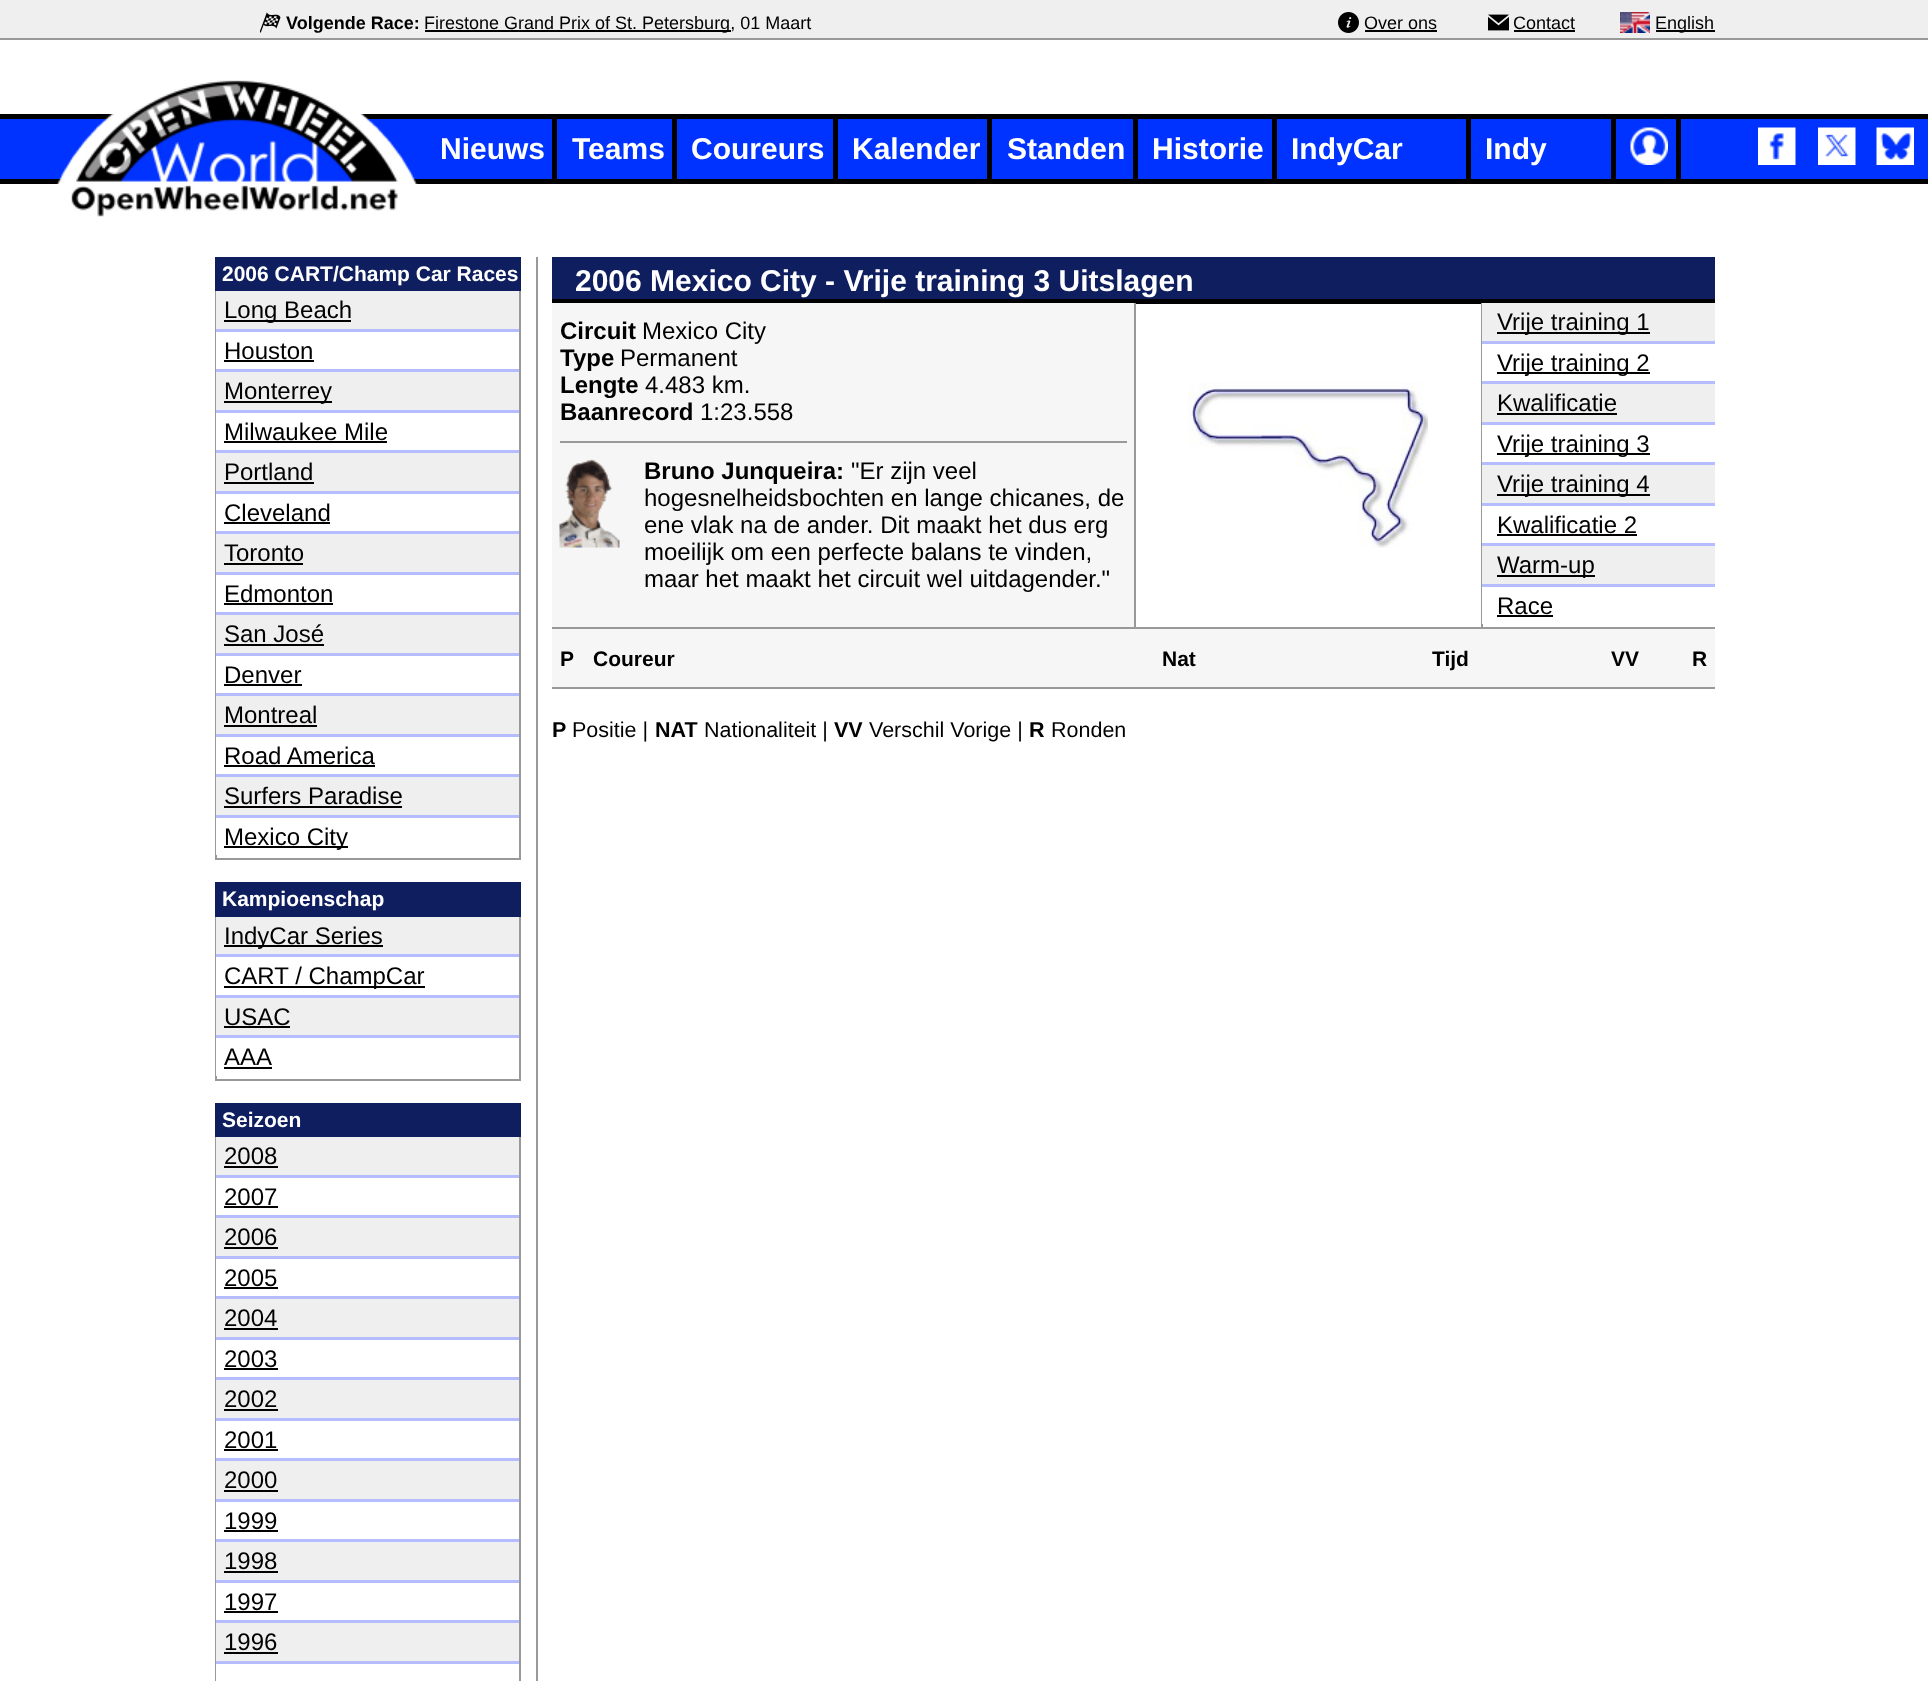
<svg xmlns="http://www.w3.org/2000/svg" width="1928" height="1681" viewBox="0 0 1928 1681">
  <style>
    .t1 { font: bold 18px Liberation Sans; fill: #000; }
    .t2 { font: 18px Liberation Sans; fill: #000; }
    .t3 { font: bold 30px Liberation Sans; fill: #fff; }
    .t4 { font: bold 21px Liberation Sans; fill: #fff; }
    .t5 { font: 24px Liberation Sans; fill: #000; }
    .t6 { font: bold 24px Liberation Sans; fill: #000; }
    .t7 { font: bold 21px Liberation Sans; fill: #000; }
    .t8 { font: bold 21.5px Liberation Sans; fill: #000; }
    .t9 { font: 21.5px Liberation Sans; fill: #000; }
  </style>
  <rect width="100%" height="100%" fill="#fff"/>
  <rect x="0" y="0" width="1928" height="38" fill="#efefef"/>
  <rect x="0" y="38" width="1928" height="2" fill="#999"/>
  <image x="260" y="12" width="21" height="21" href="images/1.png"/>
  <text x="286" y="29" class="t1">Volgende Race:</text>
  <rect x="425" y="30" width="306" height="2" fill="#000"/>
  <text x="424" y="29" class="t2">Firestone Grand Prix of St. Petersburg, 01 Maart</text>
  <image x="1338" y="12" width="21" height="21" href="images/2.png"/>
  <text x="1364" y="29" class="t2">Over ons</text>
  <rect x="1365" y="30" width="72" height="2" fill="#000"/>
  <image x="1488" y="14" width="21" height="17" href="images/3.png"/>
  <text x="1513" y="29" class="t2">Contact</text>
  <rect x="1514" y="30" width="61" height="2" fill="#000"/>
  <image x="1620" y="12" width="30" height="21" href="images/4.png"/>
  <rect x="1656" y="30" width="59" height="2" fill="#000"/>
  <text x="1655" y="29" class="t2">English</text>
  <rect x="0" y="119" width="1928" height="60" fill="#03f"/>
  <rect x="0" y="114" width="1928" height="5" fill="#000"/>
  <rect x="0" y="179" width="1928" height="5" fill="#000"/>
  <image x="56" y="80" width="362" height="137" href="images/5.png"/>
  <rect x="552" y="119" width="5" height="60" fill="#000"/>
  <text x="440" y="159" class="t3">Nieuws</text>
  <rect x="672" y="119" width="5" height="60" fill="#000"/>
  <text x="572" y="159" class="t3">Teams</text>
  <rect x="833" y="119" width="5" height="60" fill="#000"/>
  <text x="691" y="159" class="t3">Coureurs</text>
  <rect x="987" y="119" width="5" height="60" fill="#000"/>
  <text x="852" y="159" class="t3">Kalender</text>
  <rect x="1133" y="119" width="5" height="60" fill="#000"/>
  <text x="1007" y="159" class="t3">Standen</text>
  <rect x="1272" y="119" width="5" height="60" fill="#000"/>
  <text x="1152" y="159" class="t3">Historie</text>
  <rect x="1466" y="119" width="5" height="60" fill="#000"/>
  <text x="1291" y="159" class="t3">IndyCar</text>
  <rect x="1611" y="119" width="5" height="60" fill="#000"/>
  <text x="1485" y="159" class="t3">Indy</text>
  <rect x="1676" y="119" width="5" height="60" fill="#000"/>
  <image x="1630" y="127" width="38" height="38" href="images/6.png"/>
  <image x="1758" y="127" width="38" height="38" href="images/7.png"/>
  <image x="1818" y="127" width="38" height="38" href="images/8.png"/>
  <image x="1876" y="127" width="38" height="38" href="images/9.png"/>
  <rect x="536" y="257" width="2" height="1424" fill="#999"/>
  <rect x="215" y="257" width="306" height="34" fill="#0e1e5f"/>
  <text x="222" y="281" class="t4">2006 CART/Champ Car Races</text>
  <rect x="519" y="291" width="2" height="569" fill="#999"/>
  <rect x="215" y="858" width="306" height="2" fill="#999"/>
  <rect x="215" y="291" width="2" height="569" fill="#999"/>
  <rect x="216" y="329" width="303" height="489" fill="#b5bcff"/>
  <rect x="216" y="291" width="303" height="38" fill="#efefef"/>
  <rect x="224" y="320" width="127" height="2" fill="#000"/>
  <text x="224" y="318" class="t5">Long Beach</text>
  <rect x="216" y="332" width="303" height="37" fill="#fff"/>
  <text x="224" y="359" class="t5">Houston</text>
  <rect x="224" y="360" width="90" height="2" fill="#000"/>
  <rect x="216" y="372" width="303" height="38" fill="#efefef"/>
  <rect x="224" y="401" width="108" height="2" fill="#000"/>
  <text x="224" y="399" class="t5">Monterrey</text>
  <rect x="216" y="413" width="303" height="37" fill="#fff"/>
  <text x="224" y="440" class="t5">Milwaukee Mile</text>
  <rect x="224" y="441" width="163" height="2" fill="#000"/>
  <rect x="216" y="453" width="303" height="38" fill="#efefef"/>
  <text x="224" y="480" class="t5">Portland</text>
  <rect x="224" y="482" width="90" height="2" fill="#000"/>
  <rect x="216" y="494" width="303" height="37" fill="#fff"/>
  <text x="224" y="521" class="t5">Cleveland</text>
  <rect x="224" y="522" width="106" height="2" fill="#000"/>
  <rect x="216" y="534" width="303" height="38" fill="#efefef"/>
  <text x="224" y="561" class="t5">Toronto</text>
  <rect x="224" y="563" width="79" height="2" fill="#000"/>
  <rect x="216" y="575" width="303" height="37" fill="#fff"/>
  <text x="224" y="602" class="t5">Edmonton</text>
  <rect x="224" y="603" width="109" height="2" fill="#000"/>
  <rect x="216" y="615" width="303" height="38" fill="#efefef"/>
  <text x="224" y="642" class="t5">San José</text>
  <rect x="224" y="644" width="100" height="2" fill="#000"/>
  <rect x="216" y="656" width="303" height="37" fill="#fff"/>
  <text x="224" y="683" class="t5">Denver</text>
  <rect x="224" y="684" width="78" height="2" fill="#000"/>
  <rect x="216" y="696" width="303" height="38" fill="#efefef"/>
  <text x="224" y="723" class="t5">Montreal</text>
  <rect x="224" y="725" width="93" height="2" fill="#000"/>
  <rect x="216" y="737" width="303" height="37" fill="#fff"/>
  <text x="224" y="764" class="t5">Road America</text>
  <rect x="224" y="765" width="151" height="2" fill="#000"/>
  <rect x="216" y="777" width="303" height="38" fill="#efefef"/>
  <text x="224" y="804" class="t5">Surfers Paradise</text>
  <rect x="224" y="806" width="178" height="2" fill="#000"/>
  <rect x="216" y="818" width="1" height="37" fill="#fff"/>
  <rect x="224" y="846" width="124" height="2" fill="#000"/>
  <text x="224" y="845" class="t5">Mexico City</text>
  <rect x="215" y="882" width="306" height="35" fill="#0e1e5f"/>
  <text x="222" y="906" class="t4">Kampioenschap</text>
  <rect x="519" y="917" width="2" height="163" fill="#999"/>
  <rect x="215" y="1079" width="306" height="2" fill="#999"/>
  <rect x="215" y="917" width="2" height="163" fill="#999"/>
  <rect x="216" y="954" width="303" height="84" fill="#b5bcff"/>
  <rect x="216" y="917" width="303" height="37" fill="#efefef"/>
  <rect x="224" y="945" width="159" height="2" fill="#000"/>
  <text x="224" y="944" class="t5">IndyCar Series</text>
  <rect x="216" y="957" width="303" height="38" fill="#fff"/>
  <rect x="224" y="986" width="201" height="2" fill="#000"/>
  <text x="224" y="984" class="t5">CART / ChampCar</text>
  <rect x="216" y="998" width="303" height="37" fill="#efefef"/>
  <text x="224" y="1025" class="t5">USAC</text>
  <rect x="224" y="1026" width="66" height="2" fill="#000"/>
  <rect x="216" y="1038" width="1" height="38" fill="#fff"/>
  <text x="224" y="1065" class="t5">AAA</text>
  <rect x="224" y="1067" width="48" height="2" fill="#000"/>
  <rect x="215" y="1103" width="306" height="34" fill="#0e1e5f"/>
  <text x="222" y="1127" class="t4">Seizoen</text>
  <rect x="519" y="1137" width="2" height="544" fill="#999"/>
  <rect x="215" y="1137" width="1" height="544" fill="#999"/>
  <rect x="216" y="1175" width="303" height="489" fill="#b5bcff"/>
  <rect x="216" y="1137" width="303" height="38" fill="#efefef"/>
  <text x="224" y="1164" class="t5">2008</text>
  <rect x="224" y="1166" width="54" height="2" fill="#000"/>
  <rect x="216" y="1178" width="303" height="37" fill="#fff"/>
  <text x="224" y="1205" class="t5">2007</text>
  <rect x="224" y="1206" width="54" height="2" fill="#000"/>
  <rect x="216" y="1218" width="303" height="38" fill="#efefef"/>
  <text x="224" y="1245" class="t5">2006</text>
  <rect x="224" y="1247" width="54" height="2" fill="#000"/>
  <rect x="216" y="1259" width="303" height="37" fill="#fff"/>
  <text x="224" y="1286" class="t5">2005</text>
  <rect x="224" y="1287" width="54" height="2" fill="#000"/>
  <rect x="216" y="1299" width="303" height="38" fill="#efefef"/>
  <text x="224" y="1326" class="t5">2004</text>
  <rect x="224" y="1328" width="54" height="2" fill="#000"/>
  <rect x="216" y="1340" width="303" height="37" fill="#fff"/>
  <text x="224" y="1367" class="t5">2003</text>
  <rect x="224" y="1368" width="54" height="2" fill="#000"/>
  <rect x="216" y="1380" width="303" height="38" fill="#efefef"/>
  <text x="224" y="1407" class="t5">2002</text>
  <rect x="224" y="1409" width="54" height="2" fill="#000"/>
  <rect x="216" y="1421" width="303" height="37" fill="#fff"/>
  <text x="224" y="1448" class="t5">2001</text>
  <rect x="224" y="1449" width="54" height="2" fill="#000"/>
  <rect x="216" y="1461" width="303" height="38" fill="#efefef"/>
  <text x="224" y="1488" class="t5">2000</text>
  <rect x="224" y="1490" width="54" height="2" fill="#000"/>
  <rect x="216" y="1502" width="303" height="37" fill="#fff"/>
  <text x="224" y="1529" class="t5">1999</text>
  <rect x="224" y="1530" width="54" height="2" fill="#000"/>
  <rect x="216" y="1542" width="303" height="38" fill="#efefef"/>
  <text x="224" y="1569" class="t5">1998</text>
  <rect x="224" y="1571" width="54" height="2" fill="#000"/>
  <rect x="216" y="1583" width="303" height="37" fill="#fff"/>
  <text x="224" y="1610" class="t5">1997</text>
  <rect x="224" y="1611" width="54" height="2" fill="#000"/>
  <rect x="216" y="1623" width="303" height="38" fill="#efefef"/>
  <text x="224" y="1650" class="t5">1996</text>
  <rect x="224" y="1652" width="54" height="2" fill="#000"/>
  <rect x="552" y="257" width="1163" height="42" fill="#0e1e5f"/>
  <rect x="552" y="299" width="1163" height="5" fill="#000"/>
  <text x="575" y="291" class="t3">2006 Mexico City - Vrije training 3 Uitslagen</text>
  <rect x="552" y="627" width="1163" height="2" fill="#999"/>
  <rect x="552" y="303" width="582" height="324" fill="#f6f6f6"/>
  <text x="560" y="339" class="t6">Circuit</text>
  <text x="642" y="339" class="t5">Mexico City</text>
  <text x="560" y="366" class="t6">Type</text>
  <text x="620" y="366" class="t5">Permanent</text>
  <text x="560" y="393" class="t6">Lengte</text>
  <text x="645" y="393" class="t5">4.483 km.</text>
  <text x="560" y="420" class="t6">Baanrecord</text>
  <text x="700" y="420" class="t5">1:23.558</text>
  <rect x="560" y="441" width="567" height="2" fill="#999"/>
  <image x="559" y="459" width="61" height="89" href="images/10.png"/>
  <text x="644" y="479" class="t6">Bruno Junqueira:</text>
  <text x="851" y="479" class="t5">"Er zijn veel</text>
  <text x="644" y="506" class="t5">hogesnelheidsbochten en lange chicanes, de</text>
  <text x="644" y="533" class="t5">ene vlak na de ander. Dit maakt het dus erg</text>
  <text x="644" y="560" class="t5">moeilijk om een perfecte balans te vinden,</text>
  <text x="644" y="587" class="t5">maar het maakt het circuit wel uitdagender."</text>
  <rect x="1481" y="303" width="2" height="324" fill="#999"/>
  <rect x="1134" y="303" width="2" height="324" fill="#999"/>
  <image x="1188" y="382" width="240" height="166" href="images/11.png"/>
  <rect x="1482" y="341" width="233" height="246" fill="#b5bcff"/>
  <rect x="1482" y="303" width="233" height="38" fill="#efefef"/>
  <rect x="1497" y="332" width="153" height="2" fill="#000"/>
  <text x="1497" y="330" class="t5">Vrije training 1</text>
  <rect x="1482" y="344" width="233" height="37" fill="#fff"/>
  <rect x="1497" y="372" width="153" height="2" fill="#000"/>
  <text x="1497" y="371" class="t5">Vrije training 2</text>
  <rect x="1482" y="384" width="233" height="38" fill="#efefef"/>
  <text x="1497" y="411" class="t5">Kwalificatie</text>
  <rect x="1497" y="413" width="120" height="2" fill="#000"/>
  <rect x="1482" y="425" width="233" height="37" fill="#fff"/>
  <rect x="1497" y="453" width="153" height="2" fill="#000"/>
  <text x="1497" y="452" class="t5">Vrije training 3</text>
  <rect x="1482" y="465" width="233" height="38" fill="#efefef"/>
  <rect x="1497" y="494" width="153" height="2" fill="#000"/>
  <text x="1497" y="492" class="t5">Vrije training 4</text>
  <rect x="1482" y="506" width="233" height="37" fill="#fff"/>
  <text x="1497" y="533" class="t5">Kwalificatie 2</text>
  <rect x="1497" y="534" width="140" height="2" fill="#000"/>
  <rect x="1482" y="546" width="233" height="38" fill="#efefef"/>
  <rect x="1497" y="575" width="98" height="2" fill="#000"/>
  <text x="1497" y="573" class="t5">Warm-up</text>
  <rect x="1482" y="587" width="1" height="37" fill="#fff"/>
  <text x="1497" y="614" class="t5">Race</text>
  <rect x="1497" y="615" width="56" height="2" fill="#000"/>
  <rect x="552" y="629" width="1163" height="58" fill="#f6f6f6"/>
  <rect x="552" y="687" width="1163" height="2" fill="#999"/>
  <text x="560" y="666" class="t7">P</text>
  <text x="593" y="666" class="t7">Coureur</text>
  <text x="1162" y="666" class="t7">Nat</text>
  <text x="1432" y="666" class="t7">Tijd</text>
  <text x="1611" y="666" class="t7">VV</text>
  <text x="1692" y="666" class="t7">R</text>
  <text x="552" y="737" class="t8">P</text>
  <text x="572" y="737" class="t9">Positie |</text>
  <text x="655" y="737" class="t8">NAT</text>
  <text x="704" y="737" class="t9">Nationaliteit |</text>
  <text x="834" y="737" class="t8">VV</text>
  <text x="869" y="737" class="t9">Verschil Vorige |</text>
  <text x="1029" y="737" class="t8">R</text>
  <text x="1051" y="737" class="t9">Ronden</text>
</svg>
